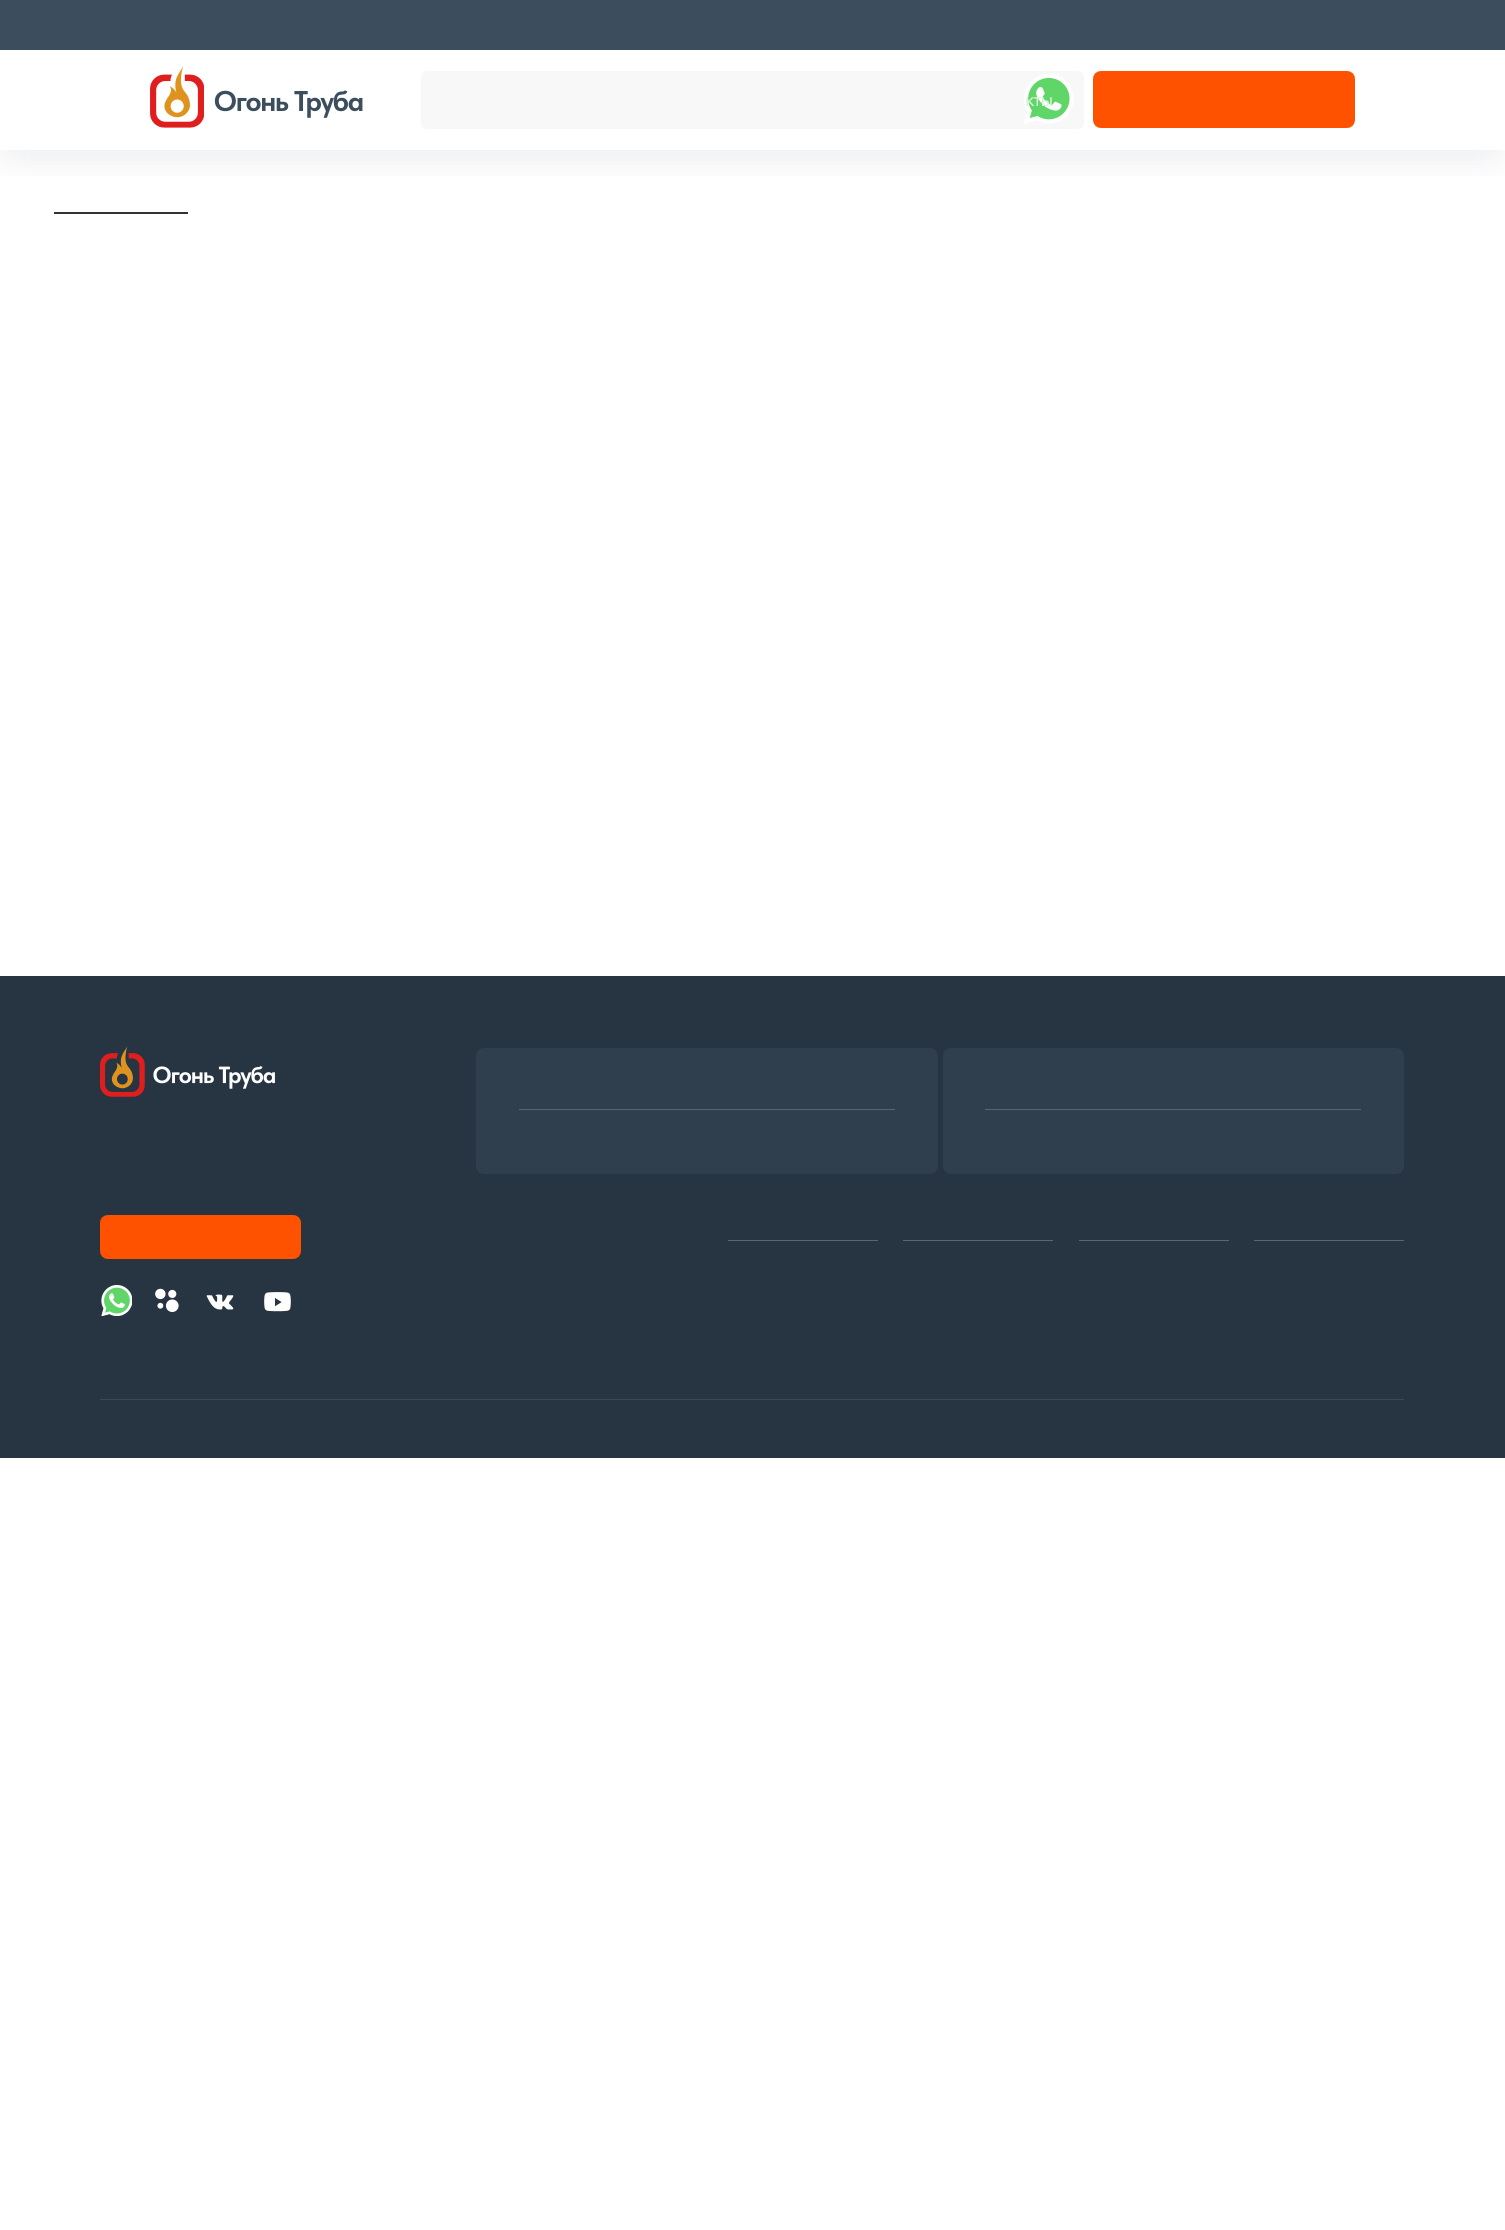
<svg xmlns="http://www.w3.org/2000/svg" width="1505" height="2230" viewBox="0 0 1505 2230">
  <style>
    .t1 { font: 20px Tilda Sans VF; letter-spacing: -1px; fill: #daf2dc; }
  </style>
  <defs>
    <clipPath id="clip1"><rect x="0" y="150" width="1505" height="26"/></clipPath>
  </defs>
  <rect width="100%" height="100%" fill="#fff"/>
  <g clip-path="url(#clip1)">
    <rect x="0" y="13" width="1505" height="150" fill="#606f7e1a" filter="blur(15.5px)"/>
  </g>
  <rect x="0" y="0" width="1505" height="50" fill="#3c4d5e"/>
  <image x="150" y="66" width="213" height="62" href="images/1.png"/>
  <rect x="421" y="71" width="663" height="58" rx="6" fill="#f8f8f8"/>
  <rect x="1093" y="71" width="262" height="57" rx="8" fill="#ff5201"/>
  <image x="1024" y="74" width="50" height="50" href="images/2.png"/>
  <text x="1025" y="106" class="t1">кты</text>
  <path d="M54 212V214H188V194V212Z" fill="#333"/>
  <rect x="0" y="976" width="1505" height="482" fill="#273543"/>
  <image x="100" y="1046" width="175" height="51" href="images/3.png"/>
  <rect x="476" y="1048" width="462" height="126" rx="8" fill="#2f3f4e"/>
  <rect x="943" y="1048" width="461" height="126" rx="8" fill="#2f3f4e"/>
  <rect x="519" y="1109" width="376" height="1" fill="#576777"/>
  <rect x="985" y="1109" width="376" height="1" fill="#576777"/>
  <rect x="100" y="1215" width="201" height="44" rx="8" fill="#ff5201"/>
  <rect x="728" y="1240" width="150" height="1" fill="#576777"/>
  <rect x="903" y="1240" width="150" height="1" fill="#576777"/>
  <rect x="1079" y="1240" width="150" height="1" fill="#576777"/>
  <rect x="1254" y="1240" width="150" height="1" fill="#576777"/>
  <image x="101" y="1285" width="31" height="31" href="images/4.png"/>
  <image x="155" y="1288" width="24" height="24" href="images/5.png"/>
  <image x="206" y="1294" width="28" height="16" href="images/6.png"/>
  <image x="264" y="1292" width="27" height="20" href="images/7.png"/>
  <rect x="100" y="1399" width="1304" height="1" fill="#3a4958"/>
</svg>
